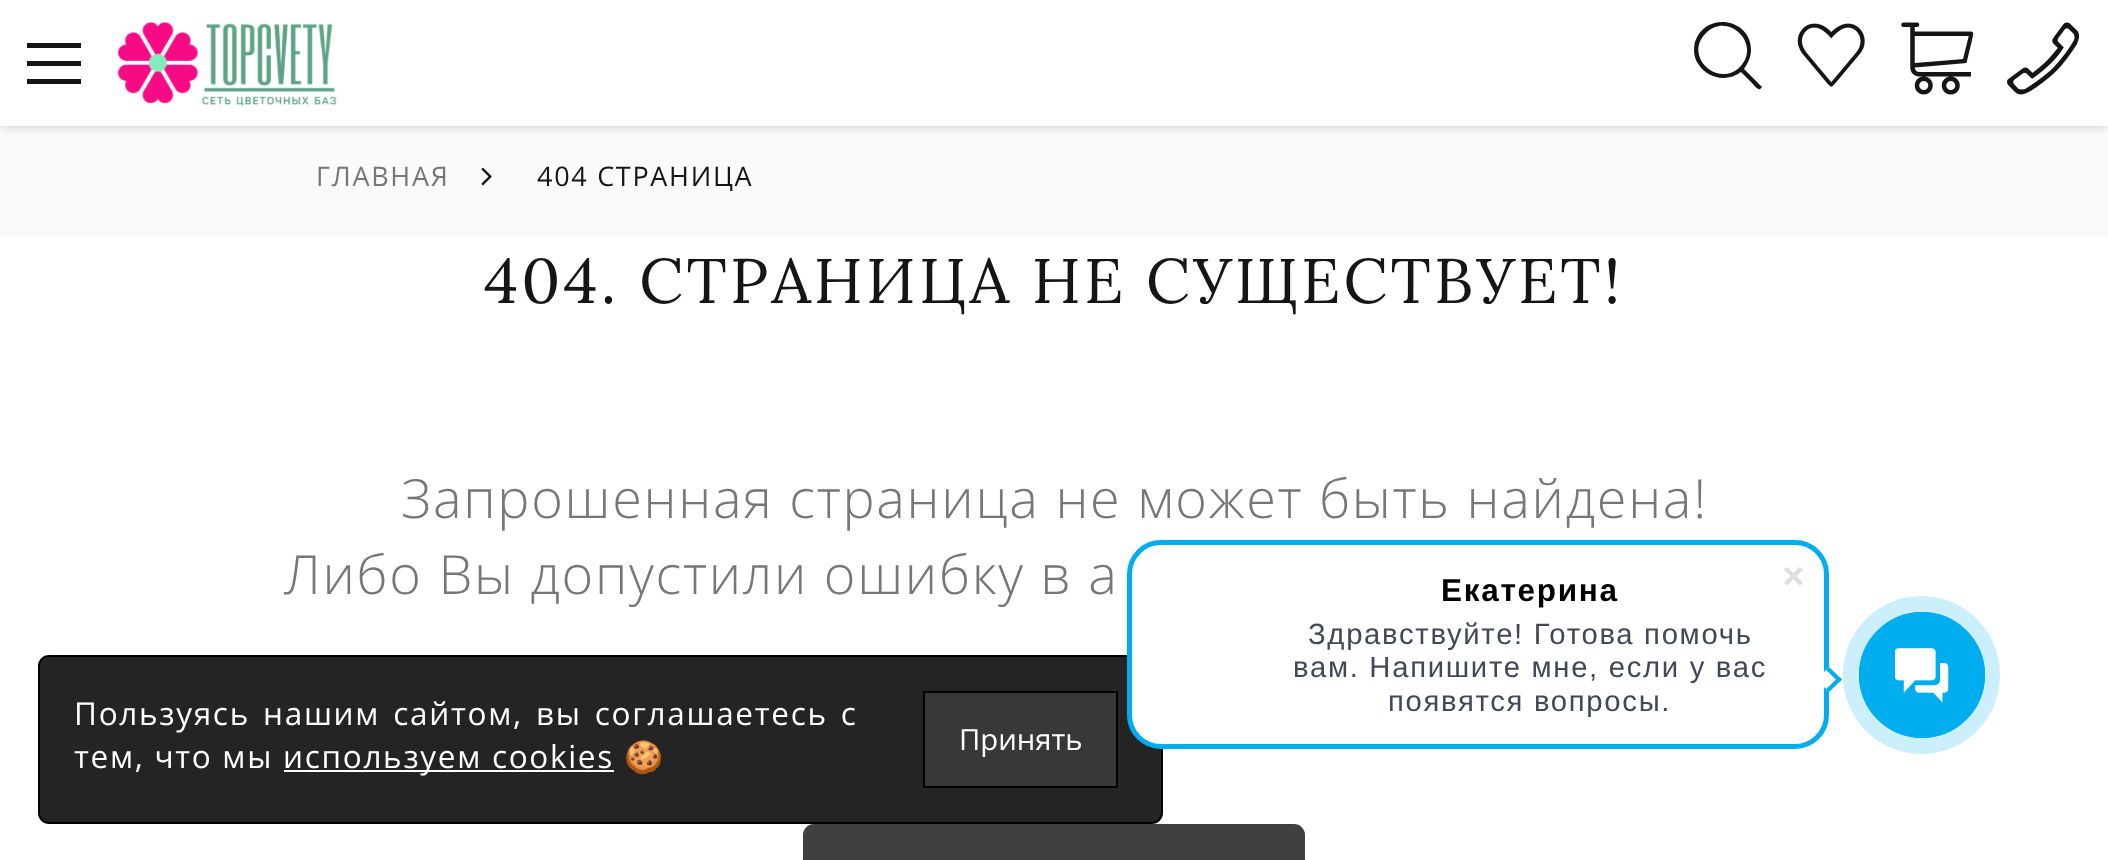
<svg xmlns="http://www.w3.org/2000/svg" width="2108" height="860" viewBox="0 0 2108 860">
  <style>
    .t1 { font: 27px Open Sans; letter-spacing: 1.7px; fill: #777; }
    .t2 { font: 27px Open Sans; letter-spacing: 1.7px; fill: #151515; }
    .t3 { font: 63px Lora; letter-spacing: 3.15px; fill: #151515; }
    .t4 { font: 300 54px Open Sans; letter-spacing: 1.7px; fill: #777; }
    .t5 { font: 31.5px Open Sans; letter-spacing: 1.7px; fill: #fff; }
    .t6 { font: 31.5px Noto Color Emoji; letter-spacing: 1.7px; fill: #fff; }
    .t7 { font: 29.25px Open Sans; fill: #fff; }
    .t8 { font: bold 31.5px Liberation Sans; letter-spacing: 1.7px; fill: #000; }
    .t9 { font: 29.25px Liberation Sans; letter-spacing: 1.7px; fill: #424956; }
  </style>
  <rect width="100%" height="100%" fill="#fff"/>
  <rect x="0" y="126" width="2108" height="110" fill="#f9faf9"/>
  <rect x="0" y="0" width="2108" height="126" fill="#01030430" filter="blur(5.5px)"/>
  <rect x="0" y="0" width="2108" height="126" fill="#fff"/>
  <rect x="27" y="61" width="54" height="5" fill="#151515"/>
  <rect x="27" y="43" width="54" height="5" fill="#151515"/>
  <rect x="27" y="79" width="54" height="5" fill="#151515"/>
  <image x="117" y="21" width="220" height="85" href="images/1.png"/>
  <image x="1797" y="23" width="68" height="64" href="images/2.png"/>
  <image x="1901" y="22" width="73" height="73" href="images/3.png"/>
  <image x="2007" y="22" width="73" height="73" href="images/4.png"/>
  <path d="M1761 86L1744 69C1748 63 1751 57 1751 50C1751 18 1705 11 1695 42C1693 50 1694 59 1699 65C1708 79 1728 82 1741 72L1752 83C1754 85 1759 92 1761 88C1762 88 1762 86 1761 86ZM1740 67C1717 89 1683 55 1706 33C1728 11 1762 44 1740 67Z" fill="#151515"/>
  <text x="316" y="186" class="t1">ГЛАВНАЯ</text>
  <image x="481" y="167" width="11" height="19" href="images/5.png"/>
  <text x="537" y="186" class="t2">404 СТРАНИЦА</text>
  <text x="484" y="303" class="t3">404. СТРАНИЦА НЕ СУЩЕСТВУЕТ!</text>
  <text x="401" y="518" class="t4">Запрошенная страница не может быть найдена!</text>
  <text x="284" y="594" class="t4">Либо Вы допустили ошибку в а</text>
  <rect x="805.5" y="826.5" width="497" height="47" rx="8.5" fill="#404040" stroke="#404040" stroke-width="5"/>
  <rect x="39" y="656" width="1123" height="167" rx="10" fill="#242424" stroke="#000" stroke-width="2"/>
  <text x="74" y="725" word-spacing="3.25" class="t5">Пользуясь нашим сайтом, вы соглашаетесь с</text>
  <text x="74" y="768" class="t5">тем, что мы</text>
  <rect x="284" y="770" width="330" height="2" fill="#fff"/>
  <text x="283" y="768" class="t5">используем cookies</text>
  <text x="624" y="768" class="t6">🍪</text>
  <rect x="924" y="692" width="193" height="95" fill="#383837" stroke="#000" stroke-width="2"/>
  <text x="959" y="750" class="t7">Принять</text>
  <rect x="1129.5" y="542.5" width="697" height="204" rx="31.5" fill="#fff" stroke="#00aeef" stroke-width="5"/>
  <image x="1784" y="567" width="19" height="19" href="images/6.png"/>
  <text x="1441" y="601" class="t8">Екатерина</text>
  <text x="1308" y="644" class="t9">Здравствуйте! Готова помочь</text>
  <text x="1293" y="677" class="t9">вам. Напишите мне, если у вас</text>
  <text x="1388" y="711" class="t9">появятся вопросы.</text>
  <path d="M1816.5 679.5L1829 667L1842 679.5L1829 692Z" fill="#fff"/>
  <path d="M1826 670L1829 667L1842 679.5L1839 682.5Z" fill="#00aeef"/>
  <path d="M1826 689L1839 676.5L1842 679.5L1829 692Z" fill="#00aeef"/>
  <rect x="1843" y="596" width="157" height="158" rx="78.5" fill="#cceffc"/>
  <circle cx="1922" cy="675" r="62" fill="none" stroke="#00aeef" stroke-width="2"/>
  <circle cx="1922" cy="675" r="63" fill="#00aeef"/>
  <image x="1895" y="648" width="54" height="54" href="images/7.png"/>
</svg>
